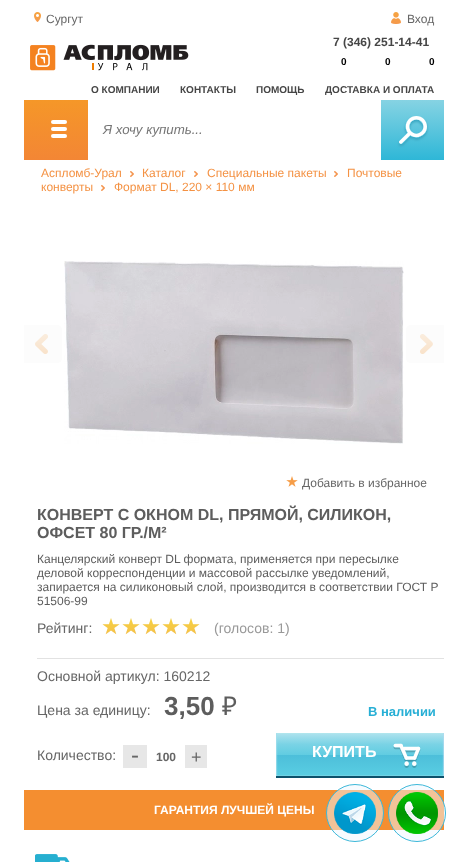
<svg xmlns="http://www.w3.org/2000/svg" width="468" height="862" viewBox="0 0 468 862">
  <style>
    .t1 { font: 12px Liberation Sans; fill: #666; }
    .t2 { font: bold 12px Liberation Sans; fill: #464646; }
    .t3 { font: bold 10px Liberation Sans; fill: #464646; }
    .t4 { font: bold 10px Liberation Sans; fill: #000; }
    .t5 { font: italic 13.25px Liberation Sans; fill: #757575; }
    .t6 { font: 12px Liberation Sans; fill: #f49244; }
    .t7 { font: bold 16px Liberation Sans; fill: #5d5d5d; }
    .t8 { font: 12px Liberation Sans; fill: #5d5d5d; }
    .t9 { font: 14px Liberation Sans; fill: #666; }
    .t10 { font: 14px Liberation Sans; fill: #999; }
    .t11 { font: bold 26px Liberation Sans; fill: #5d5d5d; }
    .t12 { font: 26px Noto Sans; fill: #5d5d5d; }
    .t13 { font: bold 13px Liberation Sans; fill: #27afd5; }
    .t14 { font: 24px Liberation Sans; fill: #666; }
    .t15 { font: bold 12px Liberation Sans; fill: #666; }
    .t16 { font: 18px Liberation Sans; fill: #666; }
    .t17 { font: bold 16px Liberation Sans; fill: #fff; }
    .t18 { font: bold 12px Liberation Sans; fill: #fff; }
  </style>
  <defs>
    <linearGradient id="g1" gradientUnits="userSpaceOnUse" x1="234" y1="100" x2="234" y2="160"><stop offset="0" stop-color="#f59728"/><stop offset="1" stop-color="#f38635"/></linearGradient>
    <linearGradient id="g2" gradientUnits="userSpaceOnUse" x1="360" y1="733" x2="360" y2="778"><stop offset="0.01" stop-color="#b0e5ed"/><stop offset="0.02" stop-color="#abe1ed"/><stop offset="0.25" stop-color="#7ad3e5"/><stop offset="0.5" stop-color="#5fcce1"/><stop offset="0.5" stop-color="#4dbfda"/><stop offset="0.94" stop-color="#59cde2"/><stop offset="0.95" stop-color="#90dae7"/></linearGradient>
    <linearGradient id="g3" gradientUnits="userSpaceOnUse" x1="276" y1="756" x2="444" y2="756"><stop offset="0" stop-color="#a4dfed"/><stop offset="0.01" stop-color="#a4dfed" stop-opacity="0"/><stop offset="0.99" stop-color="#b0daef" stop-opacity="0"/><stop offset="1" stop-color="#b0daef"/></linearGradient>
    <linearGradient id="g4" gradientUnits="userSpaceOnUse" x1="360" y1="733" x2="360" y2="778"><stop offset="0" stop-color="#000" stop-opacity="0"/><stop offset="0.95" stop-color="#0c526c" stop-opacity="0"/><stop offset="0.95" stop-color="#0c526c"/></linearGradient>
  </defs>
  <rect width="100%" height="100%" fill="#fff"/>
  <image x="34" y="12" width="7" height="10" href="images/1.png"/>
  <text x="46" y="23" class="t1">Сургут</text>
  <image x="391" y="12" width="10" height="12" href="images/2.png"/>
  <text x="407" y="23" class="t1">Вход</text>
  <image x="30" y="44" width="159" height="27" href="images/3.png"/>
  <text x="333" y="46" class="t2">7 (346) 251-14-41</text>
  <text x="91" y="93" class="t3">О КОМПАНИИ</text>
  <text x="180" y="93" class="t3">КОНТАКТЫ</text>
  <text x="256" y="93" class="t3">ПОМОЩЬ</text>
  <text x="325" y="93" class="t3">ДОСТАВКА И ОПЛАТА</text>
  <text x="341" y="65" class="t4">0</text>
  <text x="385" y="65" class="t4">0</text>
  <text x="429" y="65" class="t4">0</text>
  <rect x="24" y="100" width="64" height="60" fill="url(#g1)"/>
  <rect x="51" y="120" width="16" height="4" rx="2" fill="#fff"/>
  <rect x="51" y="127" width="16" height="4" rx="2" fill="#fff"/>
  <rect x="51" y="134" width="16" height="4" rx="2" fill="#fff"/>
  <text x="103" y="134" class="t5">Я хочу купить...</text>
  <image x="381" y="100" width="63" height="60" href="images/4.png"/>
  <text x="41" y="177" class="t6">Аспломб-Урал</text>
  <image x="130" y="171" width="4" height="6" href="images/5.png"/>
  <text x="142" y="177" class="t6">Каталог</text>
  <image x="194" y="171" width="4" height="6" href="images/5.png"/>
  <text x="207" y="177" class="t6">Специальные пакеты</text>
  <image x="334" y="171" width="4" height="6" href="images/5.png"/>
  <text x="347" y="177" class="t6">Почтовые</text>
  <text x="41" y="191" class="t6">конверты</text>
  <image x="101" y="185" width="4" height="6" href="images/5.png"/>
  <text x="114" y="191" class="t6">Формат DL, 220 × 110 мм</text>
  <image x="64" y="261" width="340" height="183" href="images/6.png"/>
  <path d="M24 325H57C60 325 62 327 62 330V358C62 361 60 363 57 363H24Z" fill="#fcfcfc"/>
  <image x="35" y="334" width="13" height="20" href="images/7.png"/>
  <path d="M411 325H444V363H411C408 363 406 361 406 358V330C406 327 408 325 411 325Z" fill="#fcfcfc"/>
  <image x="420" y="334" width="13" height="20" href="images/8.png"/>
  <image x="286" y="476" width="12" height="11" href="images/9.png"/>
  <text x="302" y="487" class="t1">Добавить в избранное</text>
  <text x="37" y="520" class="t7">КОНВЕРТ С ОКНОМ DL, ПРЯМОЙ, СИЛИКОН,</text>
  <text x="37" y="538" class="t7">ОФСЕТ 80 ГР./М²</text>
  <text x="37" y="563" class="t8">Канцелярский конверт DL формата, применяется при пересылке</text>
  <text x="37" y="577" class="t8">деловой корреспонденции и массовой рассылке уведомлений,</text>
  <text x="37" y="591" class="t8">запирается на силиконовый слой, производится в соответствии ГОСТ Р</text>
  <text x="37" y="605" class="t8">51506-99</text>
  <text x="37" y="633" class="t9">Рейтинг:</text>
  <image x="103" y="618" width="96" height="16" href="images/11.png"/>
  <image x="102" y="618" width="98" height="17" href="images/10.png"/>
  <text x="214" y="633" class="t10">(голосов: 1)</text>
  <rect x="37" y="658" width="407" height="1" fill="#e2e2e2"/>
  <text x="37" y="681" class="t9">Основной артикул: 160212</text>
  <text x="37" y="715" class="t9">Цена за единицу:</text>
  <text x="164" y="715" class="t11">3,50</text>
  <text x="222" y="715" class="t12">₽</text>
  <text x="368" y="716" class="t13">В наличии</text>
  <text x="37" y="760" class="t9">Количество:</text>
  <rect x="123" y="745" width="84" height="23" fill="#e7e7e7"/>
  <text x="131" y="763" class="t14">-</text>
  <rect x="147" y="745" width="38" height="23" fill="#fff"/>
  <text x="156" y="761" class="t15">100</text>
  <text x="191" y="763" class="t16">+</text>
  <rect x="276" y="733" width="168" height="43" fill="url(#g2)"/>
  <rect x="276" y="733" width="168" height="43" fill="url(#g3)"/>
  <rect x="276" y="776" width="168" height="2" fill="url(#g4)"/>
  <text x="312" y="757" class="t17">КУПИТЬ</text>
  <image x="393" y="743" width="28" height="25" href="images/12.png"/>
  <rect x="24" y="790" width="420" height="40" fill="#f48e30"/>
  <text x="154" y="814" class="t18">ГАРАНТИЯ ЛУЧШЕЙ ЦЕНЫ</text>
  <image x="35" y="854" width="35" height="8" href="images/13.png"/>
  <circle cx="355" cy="813" r="28.5" fill="#f0f8ff80" stroke="#3db8d9"/>
  <image x="334" y="792" width="42" height="42" href="images/14.png"/>
  <circle cx="417" cy="813" r="28.5" fill="#f0f8ff80" stroke="#3db8d9"/>
  <image x="396" y="792" width="42" height="42" href="images/15.png"/>
</svg>
